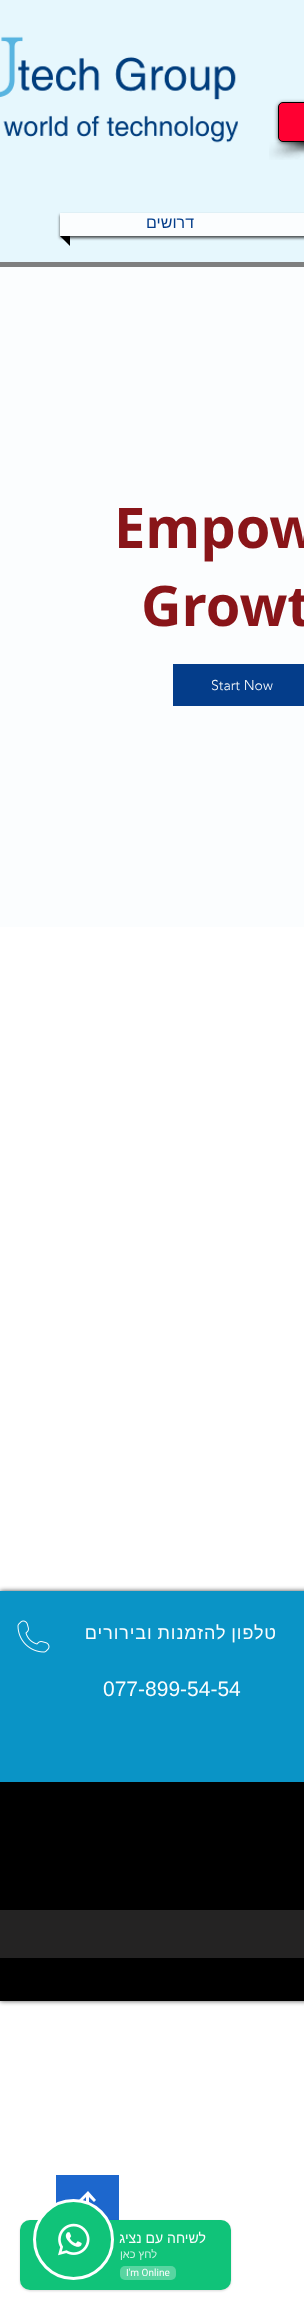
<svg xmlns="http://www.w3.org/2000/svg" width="304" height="2310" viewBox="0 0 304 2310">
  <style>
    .t1 { font: 16px Liberation Sans; direction: rtl; fill: #043d8a; }
    .t2 { font: bold 56px Open Sans; fill: #891519; }
    .t3 { font: 300 14px 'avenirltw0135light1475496'; fill: #fbfdfe; }
    .t4 { font: 18px Liberation Sans; letter-spacing: 0.9px; direction: rtl; fill: #fbfdfe; }
    .t5 { font: 21px Liberation Sans; fill: #fbfdfe; }
    .t6 { font: 14px Liberation Sans; direction: rtl; fill: #fbfdfe; }
    .t7 { font: 11px Liberation Sans; direction: rtl; fill: #cff3e4; }
    .t8 { font: 10px Roboto; fill: #fbfdfe; }
  </style>
  <rect width="100%" height="100%" fill="#fff"/>
  <rect x="0" y="0" width="304" height="262" fill="#e6f7fd"/>
  <rect x="0" y="262" width="304" height="5" fill="#7e7f7f"/>
  <image x="269" y="142" width="35" height="18" href="images/1.png"/>
  <rect x="278" y="103" width="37" height="40" rx="5" fill="#00000099" filter="blur(2px)"/>
  <rect x="278.5" y="102.5" width="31" height="39" rx="4.5" fill="#ff0032" stroke="#000"/>
  <image x="0" y="36" width="238" height="107" href="images/2.png"/>
  <path d="M60 236H70V246Z" fill="#000"/>
  <rect x="60" y="215" width="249" height="23" fill="#000000b3" filter="blur(1.5px)"/>
  <rect x="60" y="213" width="244" height="23" fill="#fbfdfe"/>
  <text x="194" y="228" class="t1">דרושים</text>
  <rect x="0" y="267" width="304" height="660" fill="#fbfdfe"/>
  <text x="114" y="548" class="t2">Empow</text>
  <text x="141" y="626" class="t2">Growt</text>
  <rect x="173" y="664" width="131" height="42" fill="#043d8a"/>
  <text x="211" y="690" class="t3">Start Now</text>
  <rect x="0" y="1591" width="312" height="410" fill="#000000b3" filter="blur(2.5px)"/>
  <rect x="0" y="1782" width="304" height="219" fill="#000"/>
  <rect x="0" y="1591" width="304" height="191" fill="#0a94c6"/>
  <text x="277" y="1639" word-spacing="-1" class="t4">טלפון להזמנות ובירורים</text>
  <image x="17" y="1620" width="33" height="33" href="images/3.png"/>
  <text x="103" y="1696" class="t5">077-899-54-54</text>
  <rect x="0" y="1910" width="304" height="48" fill="#242323"/>
  <path d="M56 2175V2241H119V2175ZM94 2202L89 2197V2225H86V2197L81 2202L79 2200L88 2191L96 2200Z" fill="#1d67cd"/>
  <rect x="20" y="2221" width="211" height="70" rx="10" fill="#00000026" filter="blur(1px)"/>
  <rect x="20" y="2220" width="211" height="70" rx="10" fill="#10c379"/>
  <text x="206" y="2243" class="t6">לשיחה עם נציג</text>
  <text x="157" y="2258" class="t7">לחץ כאן</text>
  <rect x="120" y="2266" width="56" height="14" rx="5" fill="#58d5a1"/>
  <text x="126" y="2276" class="t8">I'm Online</text>
  <circle cx="73.5" cy="2239.5" r="39" fill="#10c379" stroke="#fff" stroke-width="3"/>
  <image x="58" y="2223" width="32" height="33" href="images/4.png"/>
</svg>
